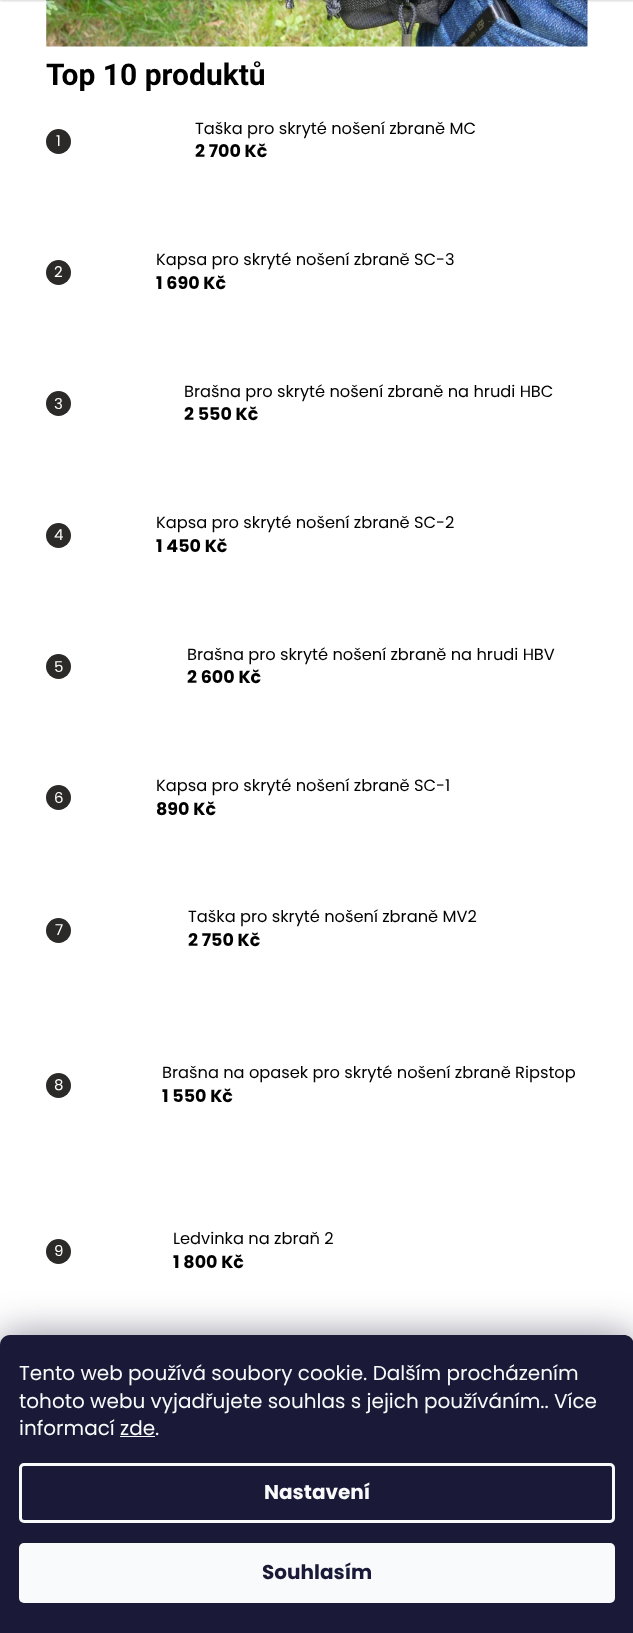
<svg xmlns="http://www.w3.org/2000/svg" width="633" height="1633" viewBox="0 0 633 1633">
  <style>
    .t1 { font: bold 30px Roboto; fill: #000; }
    .t2 { font: 15px Poppins; fill: #fff; }
    .t3 { font: 16.25px Poppins; fill: #000; }
    .t4 { font: bold 17.5px Poppins; fill: #000; }
    .t5 { font: 20px Poppins; fill: #f8fafb; }
    .t6 { font: bold 20px Poppins; fill: #f8fafb; }
    .t7 { font: bold 20px Poppins; fill: #1a1937; }
  </style>
  <rect width="100%" height="100%" fill="#fff"/>
  <image x="46" y="0" width="542" height="47" href="images/1.png"/>
  <rect x="0" y="-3" width="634" height="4" fill="#00000029" filter="blur(1px)"/>
  <text x="46" y="85" class="t1">Top 10 produktů</text>
  <circle cx="58.5" cy="141.5" r="12.5" fill="#2b2a29"/>
  <text x="56" y="146" class="t2">1</text>
  <text x="195" y="134" class="t3">Taška pro skryté nošení zbraně MC</text>
  <text x="195" y="157" class="t4">2 700 Kč</text>
  <circle cx="58.5" cy="272.5" r="12.5" fill="#2b2a29"/>
  <text x="54" y="277" class="t2">2</text>
  <text x="156" y="265" class="t3">Kapsa pro skryté nošení zbraně SC-3</text>
  <text x="156" y="289" class="t4">1 690 Kč</text>
  <circle cx="58.5" cy="403.5" r="12.5" fill="#2b2a29"/>
  <text x="54" y="409" class="t2">3</text>
  <text x="184" y="397" class="t3">Brašna pro skryté nošení zbraně na hrudi HBC</text>
  <text x="184" y="420" class="t4">2 550 Kč</text>
  <circle cx="58.5" cy="535.5" r="12.5" fill="#2b2a29"/>
  <text x="54" y="540" class="t2">4</text>
  <text x="156" y="528" class="t3">Kapsa pro skryté nošení zbraně SC-2</text>
  <text x="156" y="552" class="t4">1 450 Kč</text>
  <circle cx="58.5" cy="666.5" r="12.5" fill="#2b2a29"/>
  <text x="54" y="672" class="t2">5</text>
  <text x="187" y="660" class="t3">Brašna pro skryté nošení zbraně na hrudi HBV</text>
  <text x="187" y="683" class="t4">2 600 Kč</text>
  <circle cx="58.5" cy="797.5" r="12.5" fill="#2b2a29"/>
  <text x="54" y="803" class="t2">6</text>
  <text x="156" y="791" class="t3">Kapsa pro skryté nošení zbraně SC-1</text>
  <text x="156" y="815" class="t4">890 Kč</text>
  <circle cx="58.5" cy="930.5" r="12.5" fill="#2b2a29"/>
  <text x="55" y="935" class="t2">7</text>
  <text x="188" y="922" class="t3">Taška pro skryté nošení zbraně MV2</text>
  <text x="188" y="946" class="t4">2 750 Kč</text>
  <circle cx="58.5" cy="1085.5" r="12.5" fill="#2b2a29"/>
  <text x="54" y="1090" class="t2">8</text>
  <text x="162" y="1078" class="t3">Brašna na opasek pro skryté nošení zbraně Ripstop</text>
  <text x="162" y="1102" class="t4">1 550 Kč</text>
  <circle cx="58.5" cy="1251.5" r="12.5" fill="#2b2a29"/>
  <text x="54" y="1256" class="t2">9</text>
  <text x="173" y="1244" class="t3">Ledvinka na zbraň 2</text>
  <text x="173" y="1268" class="t4">1 800 Kč</text>
  <rect x="0" y="1335" width="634" height="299" rx="10" fill="#1b193980" filter="blur(19px)"/>
  <path d="M10 1335H624C629.5 1335 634 1339.5 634 1345V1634H0V1345C0 1339.5 4.5 1335 10 1335Z" fill="#1a1937"/>
  <text x="19" y="1380" class="t5">Tento web používá soubory cookie. Dalším procházením</text>
  <text x="19" y="1408" class="t5">tohoto webu vyjadřujete souhlas s jejich používáním.. Více</text>
  <text x="19" y="1435" class="t5">informací zde.</text>
  <rect x="120" y="1436" width="35" height="1" fill="#f8fafb"/>
  <rect x="20.5" y="1464.5" width="593" height="57" rx="3.5" fill="none" stroke="#f8fafb" stroke-width="3"/>
  <text x="264" y="1499" class="t6">Nastavení</text>
  <rect x="19" y="1543" width="596" height="60" rx="5" fill="#f8fafb"/>
  <text x="262" y="1579" class="t7">Souhlasím</text>
</svg>
